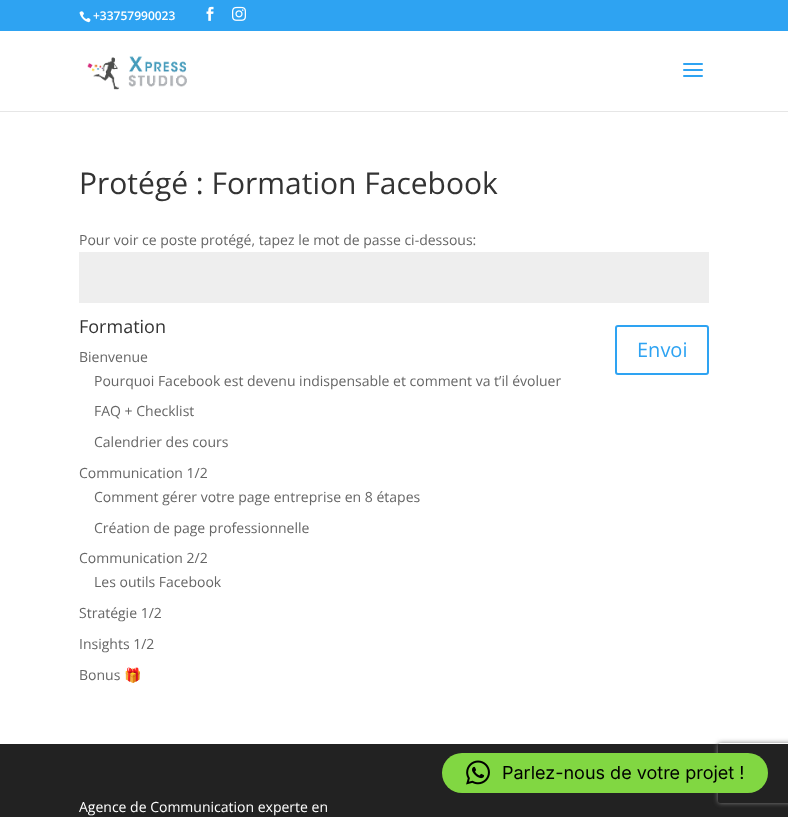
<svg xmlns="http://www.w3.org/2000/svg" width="788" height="817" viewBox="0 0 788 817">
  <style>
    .t1 { font: 600 12px Open Sans; fill: #fff; }
    .t2 { font: 30px Open Sans; fill: #333; }
    .t3 { font: 14px Open Sans; fill: #666; }
    .t4 { font: 20px Open Sans; fill: #2ea3f2; }
    .t5 { font: 18px Open Sans; fill: #333; }
    .t6 { font: 14px Noto Color Emoji; fill: #666; }
    .t7 { font: 14px Open Sans; fill: #fff; }
    .t8 { font: 18px Inter; fill: #000; }
  </style>
  <defs>
    <clipPath id="clip1"><path d="M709 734H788V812H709ZM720 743H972C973 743 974 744 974 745V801C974 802 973 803 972 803H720C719 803 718 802 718 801V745C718 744 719 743 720 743Z" clip-rule="evenodd"/></clipPath>
  </defs>
  <rect width="100%" height="100%" fill="#fff"/>
  <rect x="0" y="0" width="788" height="31" fill="#2ea3f2"/>
  <image x="79" y="11" width="12" height="12" href="images/1.png"/>
  <text x="93" y="20" class="t1">+33757990023</text>
  <image x="206" y="6" width="8" height="15" href="images/2.png"/>
  <image x="232" y="6" width="14" height="15" href="images/3.png"/>
  <rect x="0" y="111" width="788" height="1" fill="#e6e6e6"/>
  <image x="87" y="56" width="100" height="34" href="images/4.png"/>
  <image x="683" y="63" width="20" height="14" href="images/5.png"/>
  <text x="79" y="194" class="t2">Protégé : Formation Facebook</text>
  <text x="79" y="245" class="t3">Pour voir ce poste protégé, tapez le mot de passe ci-dessous:</text>
  <rect x="79" y="252" width="630" height="51" fill="#eee"/>
  <rect x="616" y="326" width="92" height="48" rx="2" fill="none" stroke="#2ea3f2" stroke-width="2"/>
  <text x="637" y="357" class="t4">Envoi</text>
  <text x="79" y="333" class="t5">Formation</text>
  <text x="79" y="362" class="t3">Bienvenue</text>
  <text x="94" y="386" class="t3">Pourquoi Facebook est devenu indispensable et comment va t’il évoluer</text>
  <text x="94" y="416" class="t3">FAQ + Checklist</text>
  <text x="94" y="447" class="t3">Calendrier des cours</text>
  <text x="79" y="478" class="t3">Communication 1/2</text>
  <text x="94" y="502" class="t3">Comment gérer votre page entreprise en 8 étapes</text>
  <text x="94" y="533" class="t3">Création de page professionnelle</text>
  <text x="79" y="563" class="t3">Communication 2/2</text>
  <text x="94" y="587" class="t3">Les outils Facebook</text>
  <text x="79" y="618" class="t3">Stratégie 1/2</text>
  <text x="79" y="649" class="t3">Insights 1/2</text>
  <text x="79" y="680" class="t3">Bonus</text>
  <text x="124" y="680" class="t6">🎁</text>
  <rect x="0" y="744" width="788" height="73" fill="#222"/>
  <text x="79" y="812" class="t7">Agence de Communication experte en</text>
  <g clip-path="url(#clip1)">
    <rect x="718" y="743" width="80" height="60" rx="2" fill="#808080" filter="blur(2.5px)"/>
  </g>
  <rect x="442" y="753" width="326" height="40" rx="20" fill="#81d742"/>
  <image x="466" y="760" width="24" height="25" href="images/6.png"/>
  <text x="502" y="779" class="t8">Parlez-nous de votre projet !</text>
</svg>
